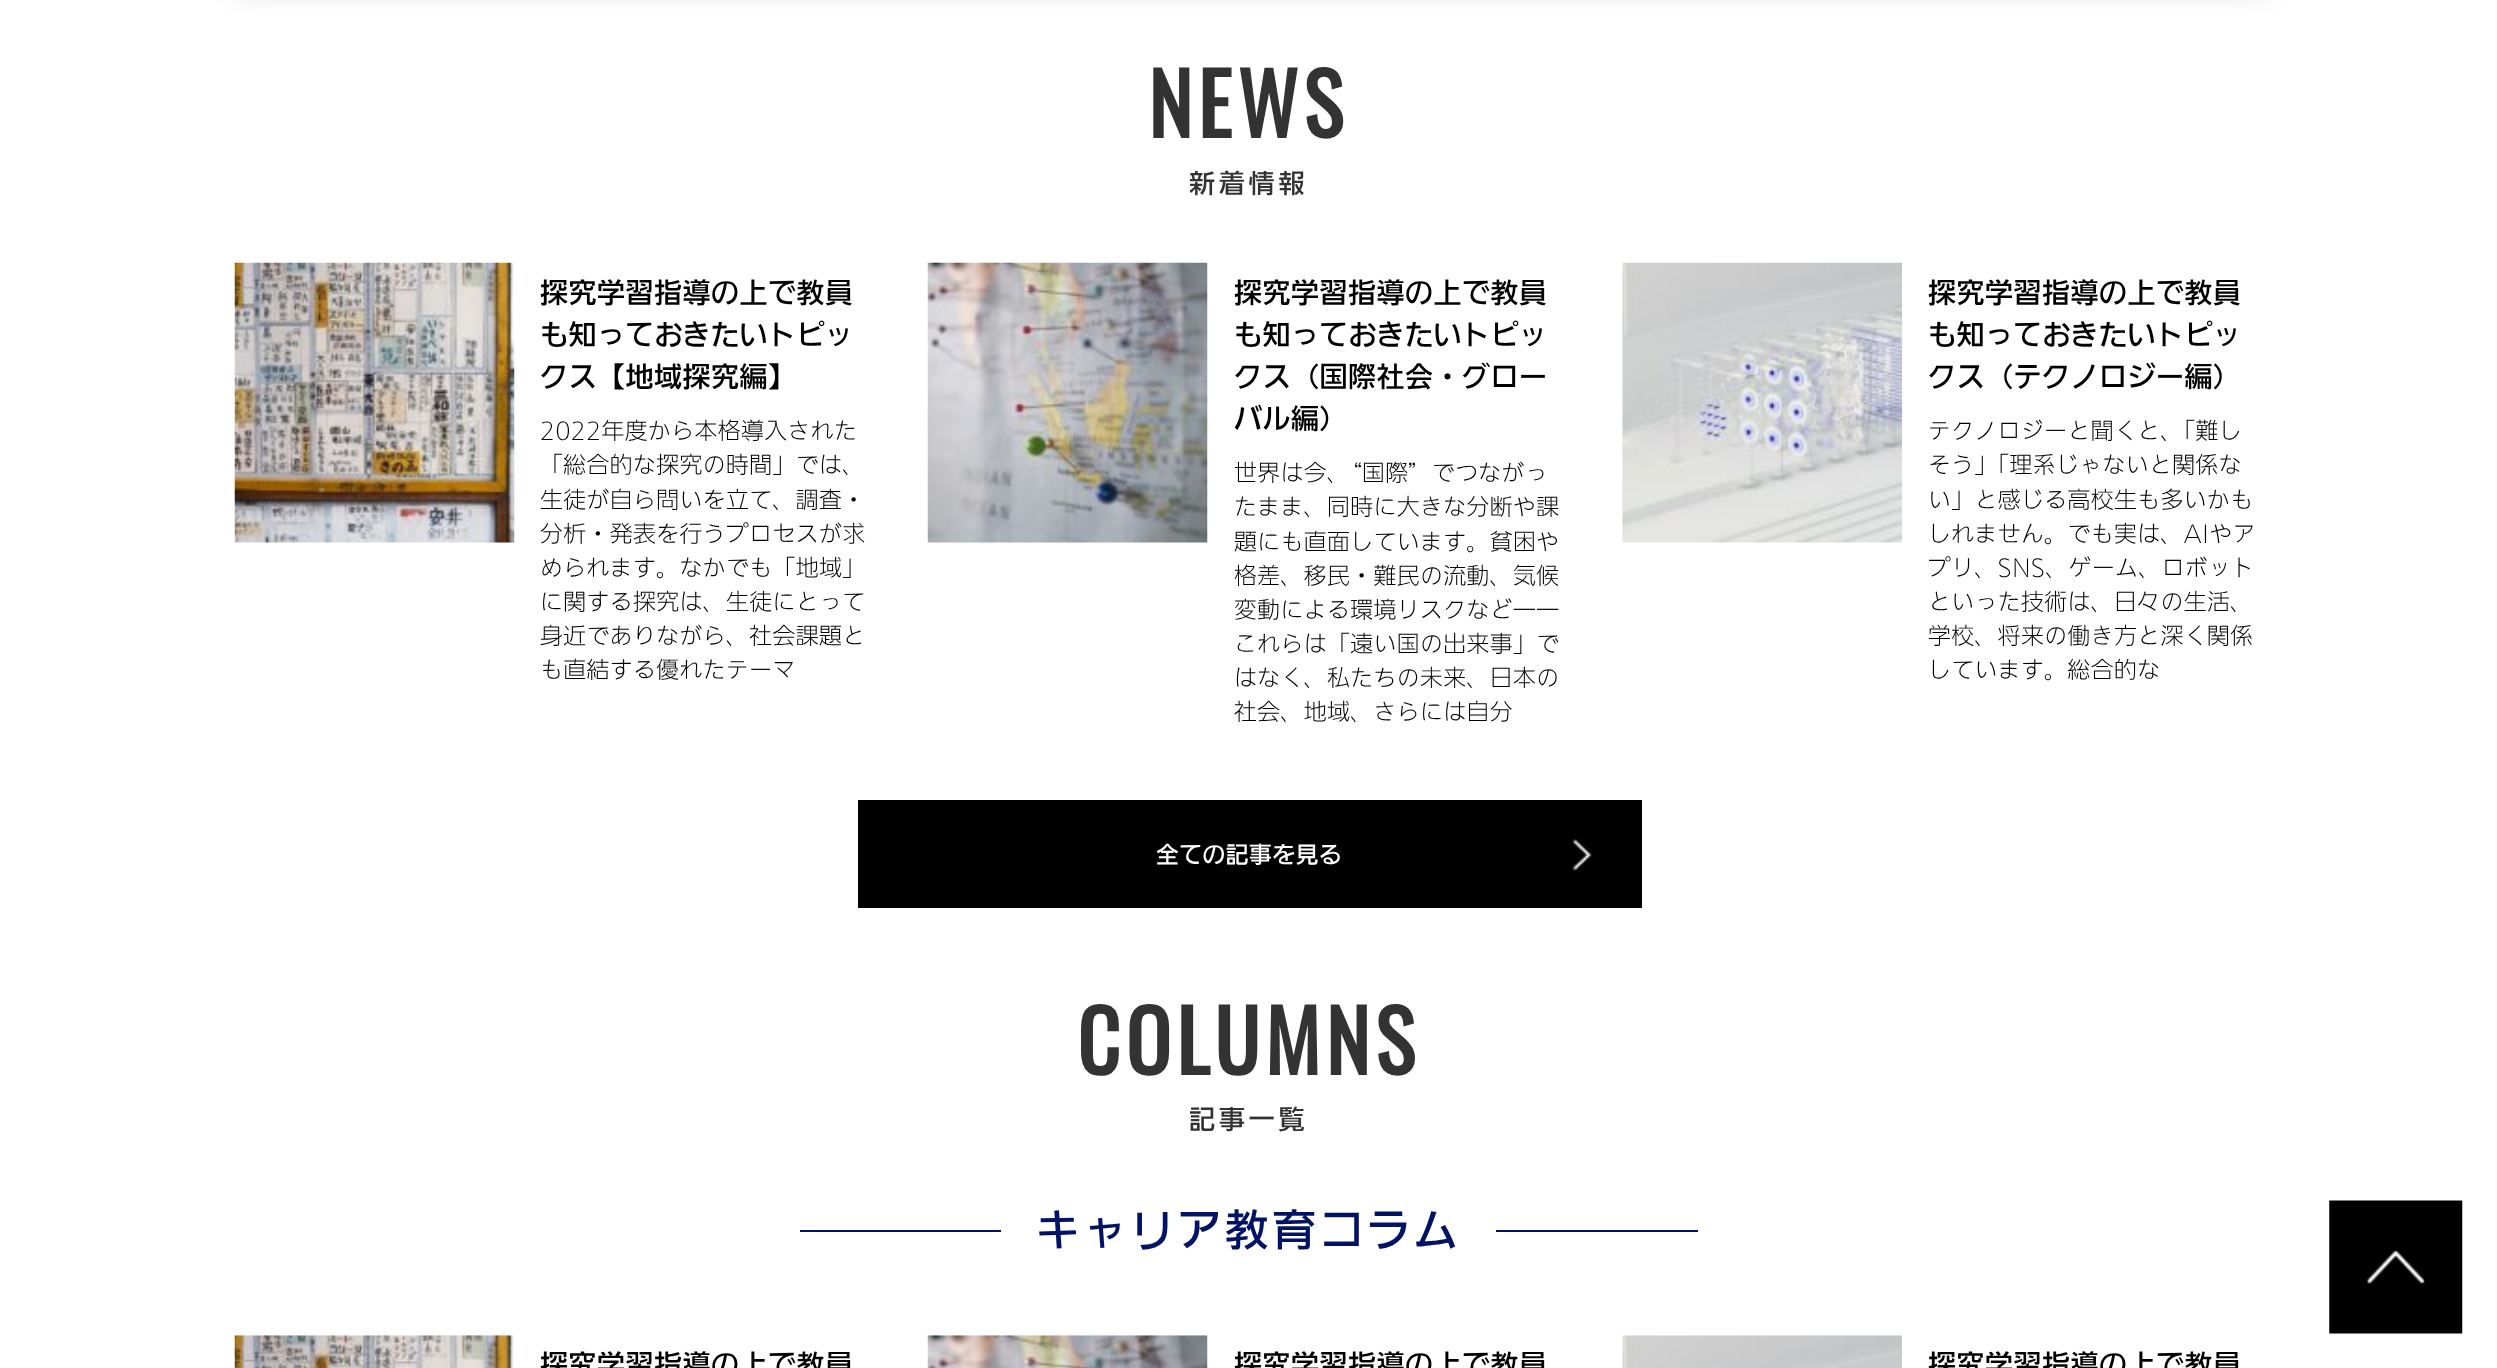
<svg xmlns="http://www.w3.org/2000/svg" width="2497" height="1368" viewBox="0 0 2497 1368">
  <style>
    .t1 { font: bold 84px Oswald; letter-spacing: 5.25px; fill: #333; }
    .t2 { font: 500 26.25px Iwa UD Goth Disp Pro; letter-spacing: 3.5px; fill: #333; }
    .t3 { font: 500 28px Iwa UD Goth Disp Pro; letter-spacing: 0.5px; fill: #000; }
    .t4 { font: 300 22.75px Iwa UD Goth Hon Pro; letter-spacing: 0.5px; fill: #000; }
    .t5 { font: 500 22.75px Iwa UD Goth Disp Pro; letter-spacing: 0.5px; fill: #fff; }
    .t6 { font: 500 43.75px Iwa UD Goth Disp Pro; letter-spacing: 3.5px; fill: #021265; }
  </style>
  <rect width="100%" height="100%" fill="#fff"/>
  <rect x="235" y="-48" width="2030" height="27" fill="#00000080" filter="blur(16px)"/>
  <text x="1148" y="138" class="t1">NEWS</text>
  <text x="1189" y="193" class="t2">新着情報</text>
  <image x="234" y="262" width="281" height="281" href="images/1.png"/>
  <text x="540" y="303" class="t3">探究学習指導の上で教員</text>
  <text x="540" y="345" class="t3">も知っておきたいトピッ</text>
  <text x="540" y="387" class="t3">クス【地域探究編】</text>
  <text x="540" y="439" class="t4">2022年度から本格導入された</text>
  <text x="540" y="473" class="t4">「総合的な探究の時間」では、</text>
  <text x="540" y="508" class="t4">生徒が自ら問いを立て、調査・</text>
  <text x="540" y="542" class="t4">分析・発表を行うプロセスが求</text>
  <text x="540" y="576" class="t4">められます。なかでも「地域」</text>
  <text x="540" y="610" class="t4">に関する探究は、生徒にとって</text>
  <text x="540" y="644" class="t4">身近でありながら、社会課題と</text>
  <text x="540" y="678" class="t4">も直結する優れたテーマ</text>
  <image x="927" y="262" width="281" height="281" href="images/2.png"/>
  <text x="1234" y="303" class="t3">探究学習指導の上で教員</text>
  <text x="1234" y="345" class="t3">も知っておきたいトピッ</text>
  <text x="1234" y="387" class="t3">クス（国際社会・グロー</text>
  <text x="1234" y="429" class="t3">バル編）</text>
  <text x="1234" y="481" class="t4">世界は今、“国際”でつながっ</text>
  <text x="1234" y="515" class="t4">たまま、同時に大きな分断や課</text>
  <text x="1234" y="550" class="t4">題にも直面しています。貧困や</text>
  <text x="1234" y="584" class="t4">格差、移民・難民の流動、気候</text>
  <text x="1234" y="618" class="t4">変動による環境リスクなど――</text>
  <text x="1234" y="652" class="t4">これらは「遠い国の出来事」で</text>
  <text x="1234" y="686" class="t4">はなく、私たちの未来、日本の</text>
  <text x="1234" y="720" class="t4">社会、地域、さらには自分</text>
  <image x="1622" y="262" width="281" height="281" href="images/3.png"/>
  <text x="1928" y="303" class="t3">探究学習指導の上で教員</text>
  <text x="1928" y="345" class="t3">も知っておきたいトピッ</text>
  <text x="1928" y="387" class="t3">クス（テクノロジー編）</text>
  <text x="1928" y="439" class="t4">テクノロジーと聞くと、「難し</text>
  <text x="1928" y="473" class="t4">そう」「理系じゃないと関係な</text>
  <text x="1928" y="508" class="t4">い」と感じる高校生も多いかも</text>
  <text x="1928" y="542" class="t4">しれません。でも実は、AIやア</text>
  <text x="1928" y="576" class="t4">プリ、SNS、ゲーム、ロボット</text>
  <text x="1928" y="610" class="t4">といった技術は、日々の生活、</text>
  <text x="1928" y="644" class="t4">学校、将来の働き方と深く関係</text>
  <text x="1928" y="678" class="t4">しています。総合的な</text>
  <rect x="858" y="800" width="784" height="108" fill="#000"/>
  <text x="1156" y="863" class="t5">全ての記事を見る</text>
  <image x="1572" y="839" width="20" height="32" href="images/4.png"/>
  <text x="1077" y="1075" class="t1">COLUMNS</text>
  <text x="1189" y="1129" class="t2">記事一覧</text>
  <rect x="800" y="1230" width="201" height="2" fill="#021265"/>
  <text x="1036" y="1246" class="t6">キャリア教育コラム</text>
  <rect x="1496" y="1230" width="202" height="2" fill="#021265"/>
  <image x="234" y="1335" width="280" height="33" href="images/5.png"/>
  <text x="540" y="1375" class="t3">探究学習指導の上で教員</text>
  <image x="927" y="1335" width="281" height="33" href="images/6.png"/>
  <text x="1234" y="1375" class="t3">探究学習指導の上で教員</text>
  <image x="1622" y="1335" width="280" height="33" href="images/7.png"/>
  <text x="1928" y="1375" class="t3">探究学習指導の上で教員</text>
  <image x="2329" y="1200" width="134" height="134" href="images/8.png"/>
</svg>
